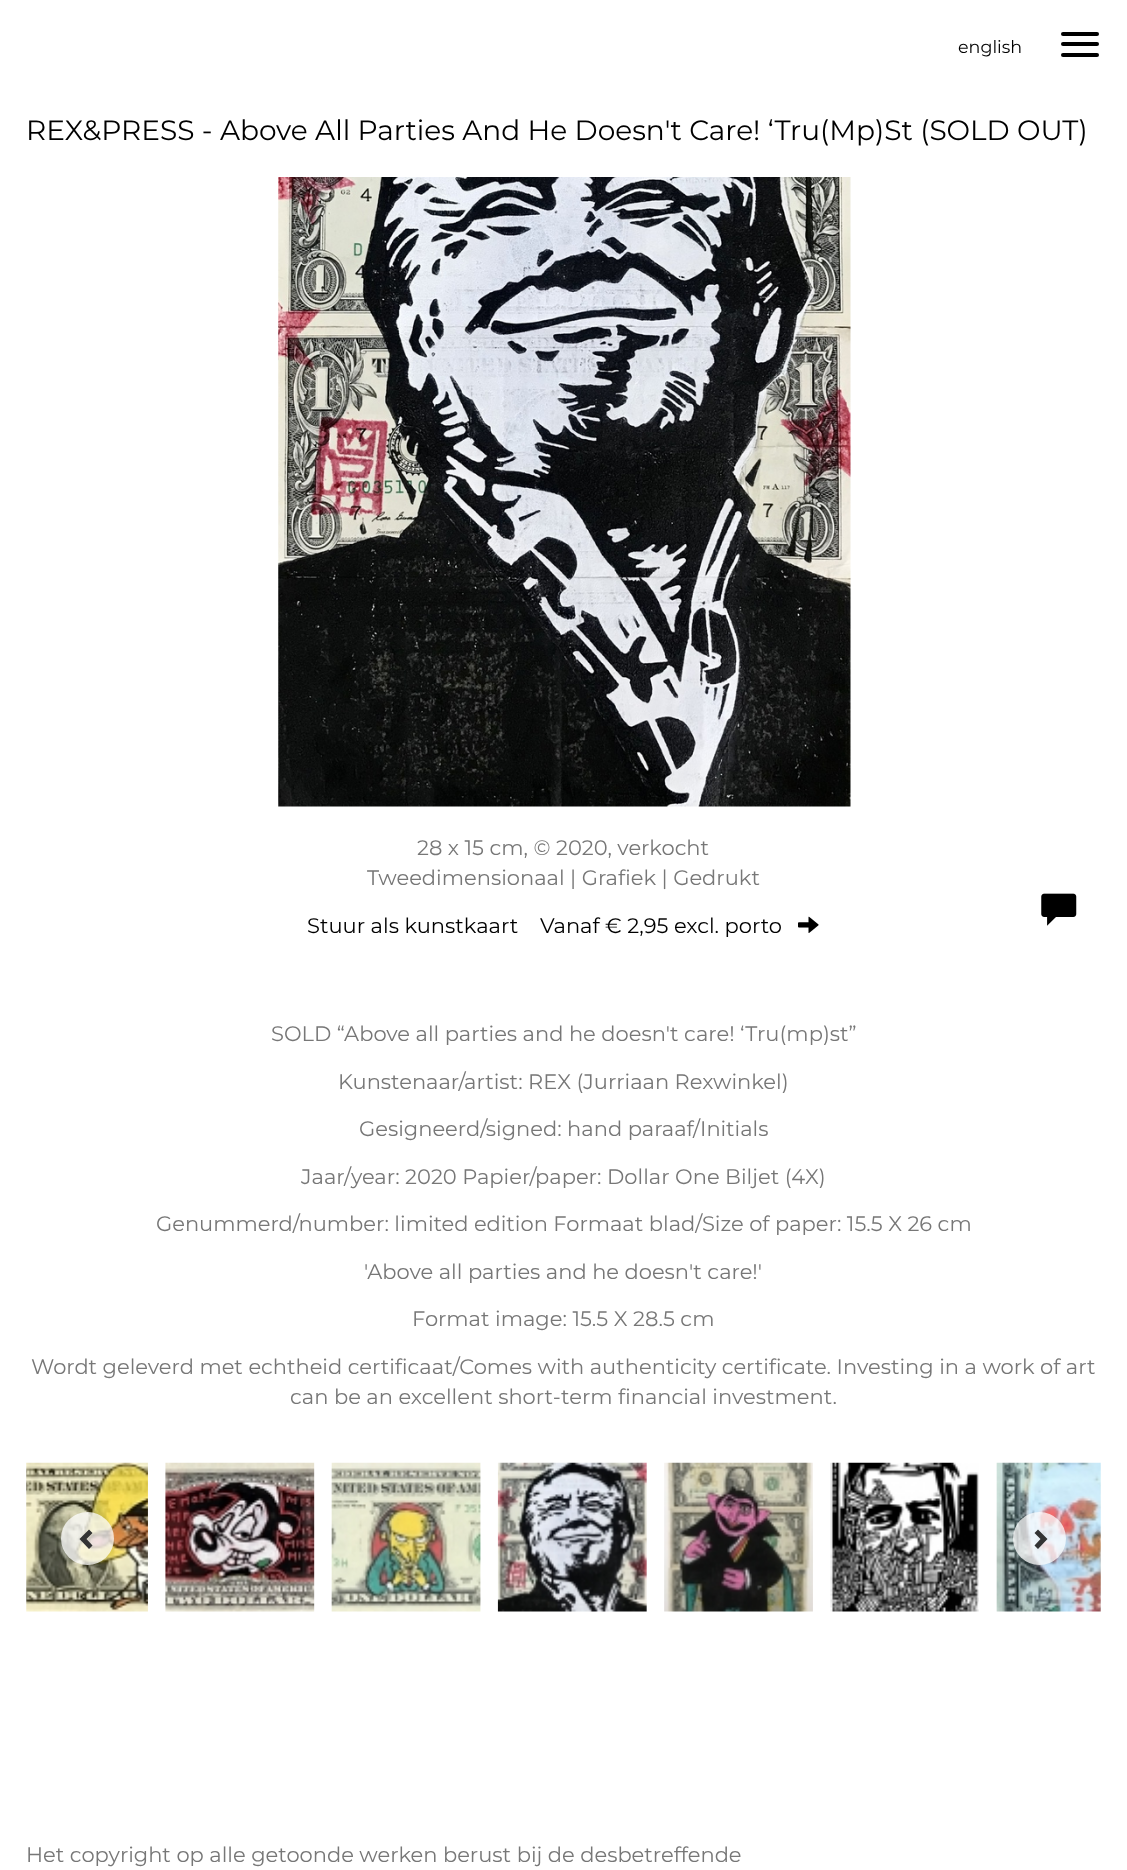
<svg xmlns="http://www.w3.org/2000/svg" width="1127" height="1870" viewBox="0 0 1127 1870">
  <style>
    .t1 { font: 100 17.5px Montserrat; fill: #000; }
    .t2 { font: 100 28px Montserrat; fill: #000; }
    .t3 { font: 100 21px Montserrat; fill: #777; }
    .t4 { font: 100 21px Montserrat; fill: #000; }
  </style>
  <rect width="100%" height="100%" fill="#fff"/>
  <text x="958" y="53" class="t1">english</text>
  <rect x="1061" y="32" width="38" height="4" rx="2" fill="#000"/>
  <rect x="1061" y="42" width="38" height="4" rx="2" fill="#000"/>
  <rect x="1061" y="53" width="38" height="4" rx="2" fill="#000"/>
  <text x="26" y="140" class="t2">REX&amp;PRESS - Above All Parties And He Doesn't Care! ‘Tru(Mp)St (SOLD OUT)</text>
  <image x="278" y="177" width="573" height="630" href="images/1.png"/>
  <text x="417" y="855" class="t3">28 x 15 cm, © 2020, verkocht</text>
  <text x="367" y="885" class="t3">Tweedimensionaal | Grafiek | Gedrukt</text>
  <text x="307" y="933" class="t4">Stuur als kunstkaart</text>
  <text x="540" y="933" class="t4">Vanaf € 2,95 excl. porto</text>
  <image x="798" y="916" width="21" height="17" href="images/2.png"/>
  <image x="1041" y="893" width="36" height="33" href="images/3.png"/>
  <text x="271" y="1041" class="t3">SOLD “Above all parties and he doesn't care! ‘Tru(mp)st”</text>
  <text x="338" y="1089" class="t3">Kunstenaar/artist: REX (Jurriaan Rexwinkel)</text>
  <text x="359" y="1136" class="t3">Gesigneerd/signed: hand paraaf/Initials</text>
  <text x="301" y="1184" class="t3">Jaar/year: 2020 Papier/paper: Dollar One Biljet (4X)</text>
  <text x="156" y="1231" class="t3">Genummerd/number: limited edition Formaat blad/Size of paper: 15.5 X 26 cm</text>
  <text x="364" y="1279" class="t3">'Above all parties and he doesn't care!'</text>
  <text x="412" y="1326" class="t3">Format image: 15.5 X 28.5 cm</text>
  <text x="31" y="1374" class="t3">Wordt geleverd met echtheid certificaat/Comes with authenticity certificate. Investing in a work of art</text>
  <text x="290" y="1404" class="t3">can be an excellent short-term financial investment.</text>
  <image x="26" y="1462" width="122" height="150" href="images/4.png"/>
  <image x="165" y="1462" width="150" height="150" href="images/5.png"/>
  <image x="331" y="1462" width="150" height="150" href="images/6.png"/>
  <image x="497" y="1462" width="150" height="150" href="images/7.png"/>
  <image x="664" y="1462" width="149" height="150" href="images/8.png"/>
  <image x="830" y="1462" width="149" height="150" href="images/9.png"/>
  <image x="996" y="1462" width="105" height="150" href="images/10.png"/>
  <circle cx="87.5" cy="1538.5" r="26.5" fill="#ffffffbf"/>
  <path d="M92.5 1533L86.5 1539L92.5 1545.5L89 1549L79.5 1539L89 1529.5Z" fill="#333"/>
  <circle cx="1039.5" cy="1538.5" r="26.5" fill="#ffffffbf"/>
  <path d="M1047.5 1539L1038 1549L1034.5 1545.5L1040.5 1539L1034.5 1533L1038 1529.5Z" fill="#333"/>
  <text x="26" y="1862" class="t3">Het copyright op alle getoonde werken berust bij de desbetreffende</text>
</svg>
